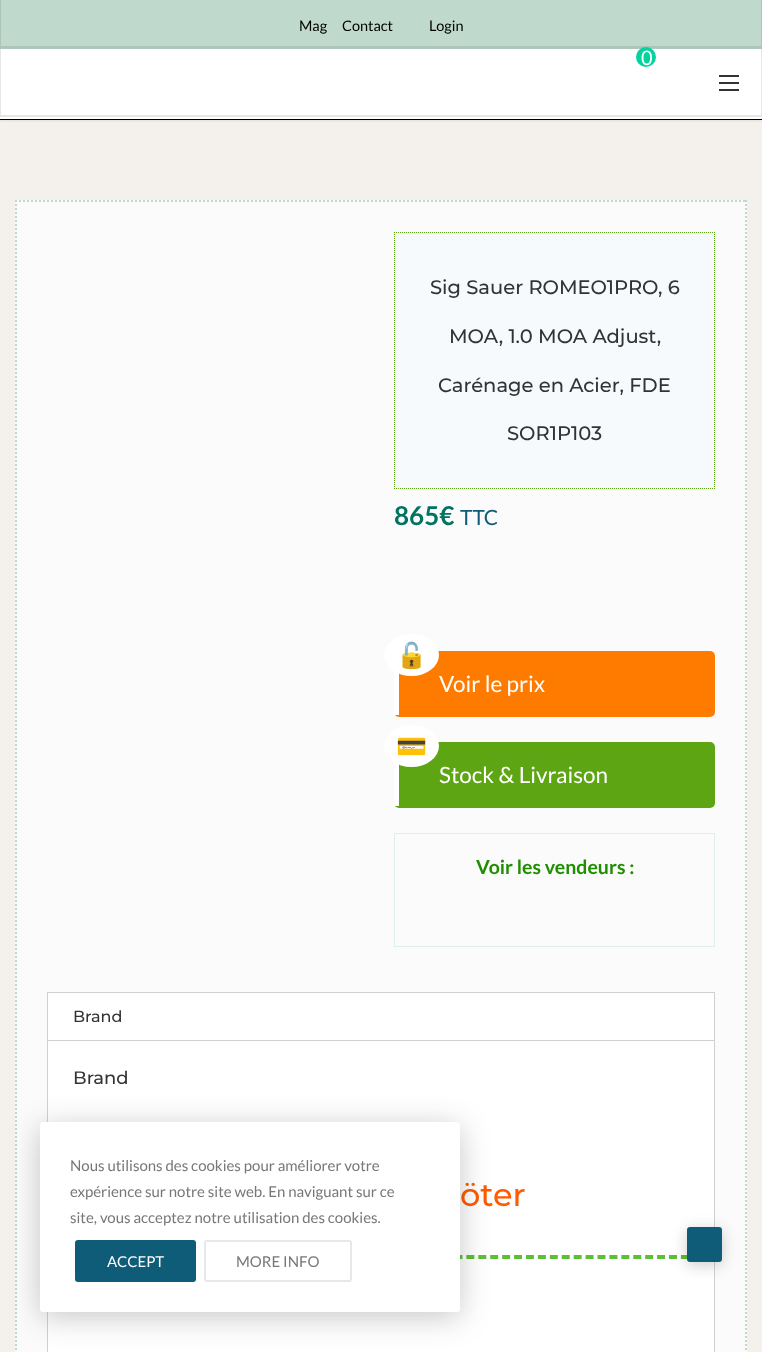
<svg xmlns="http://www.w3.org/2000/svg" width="762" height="1352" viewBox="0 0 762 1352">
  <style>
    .t1 { font: 14.5px Lato; fill: #000; }
    .t2 { font: 20px Lato; fill: #fff; }
    .t3 { font: 100 19.5px Montserrat; fill: #333; }
    .t4 { font: bold 26px Lato; fill: #007461; }
    .t5 { font: 21px Lato; fill: #0f5c78; }
    .t6 { font: 25px Noto Color Emoji; fill: #333; }
    .t7 { font: 22.5px Lato; fill: #fff; }
    .t8 { font: bold 19.5px Lato; fill: #1f8e00; }
    .t9 { font: 100 16px Montserrat; fill: #333; }
    .t10 { font: 100 18px Montserrat; fill: #333; }
    .t11 { font: 100 32px Montserrat; fill: #ff5b00; }
    .t12 { font: 15px Lato; fill: #777; }
    .t13 { font: 15px Lato; fill: #fff; }
  </style>
  <defs>
    <clipPath id="clip1"><rect x="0" y="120" width="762" height="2"/></clipPath>
    <clipPath id="clip2"><rect x="0" y="0" width="762" height="48"/></clipPath>
    <clipPath id="clip3"><rect x="0" y="49" width="762" height="68"/></clipPath>
  </defs>
  <rect width="100%" height="100%" fill="#fff"/>
  <rect x="0" y="120" width="762" height="1232" fill="#f4f1ed"/>
  <g clip-path="url(#clip1)">
    <rect x="0" y="2" width="762" height="120" fill="#0000000d" filter="blur(1.5px)"/>
  </g>
  <rect x="1" y="0" width="760" height="46" fill="#bfdacd"/>
  <g clip-path="url(#clip2)">
    <path d="M-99-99H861V147H-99ZM1 0H761V46H1Z" fill="#acc4b9" fill-rule="evenodd"/>
  </g>
  <rect x="0" y="48" width="762" height="1" fill="#b0c9bd"/>
  <text x="299" y="31" class="t1">Mag</text>
  <text x="342" y="31" class="t1">Contact</text>
  <text x="429" y="31" class="t1">Login</text>
  <g clip-path="url(#clip3)">
    <path d="M-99-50H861V216H-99ZM1 49H761V115H1Z" fill="#e6e6e6" fill-rule="evenodd"/>
  </g>
  <circle cx="646" cy="57" r="10" fill="#04d39f"/>
  <text x="641" y="65" class="t2">0</text>
  <rect x="719" y="82" width="20" height="2" fill="#323232"/>
  <rect x="719" y="75" width="20" height="2" fill="#323232"/>
  <rect x="719" y="89" width="20" height="2" fill="#323232"/>
  <rect x="0" y="119" width="762" height="1" fill="#000"/>
  <rect x="15" y="200" width="732" height="1152" fill="#fbfbfb"/>
  <path d="M15 201H747" fill="none" stroke="#bfdacd" stroke-width="2" stroke-dasharray="2 2"/>
  <path d="M746 200V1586" fill="none" stroke="#bfdacd" stroke-width="2" stroke-dasharray="2 2"/>
  <path d="M16 200V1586" fill="none" stroke="#bfdacd" stroke-width="2" stroke-dasharray="2 2"/>
  <rect x="394" y="232" width="321" height="257" fill="#f7fafd"/>
  <path d="M394 232.5H715" fill="none" stroke="#5ba513" stroke-dasharray="1 1"/>
  <path d="M714.5 232V489" fill="none" stroke="#5ba513" stroke-dasharray="1 1"/>
  <path d="M394 488.5H715" fill="none" stroke="#5ba513" stroke-dasharray="1 1"/>
  <path d="M394.5 232V489" fill="none" stroke="#5ba513" stroke-dasharray="1 1"/>
  <text x="430" y="294" class="t3">Sig Sauer ROMEO1PRO, 6</text>
  <text x="449" y="343" class="t3">MOA, 1.0 MOA Adjust,</text>
  <text x="438" y="392" class="t3">Carénage en Acier, FDE</text>
  <text x="507" y="440" class="t3">SOR1P103</text>
  <text x="394" y="525" class="t4">865€</text>
  <text x="460" y="525" class="t5">TTC</text>
  <rect x="394" y="651" width="321" height="66" rx="5" fill="#ff7b00"/>
  <rect x="394" y="671" width="5" height="44" fill="#fff"/>
  <ellipse cx="411.5" cy="655" rx="27.5" ry="21" fill="#fff"/>
  <text x="396" y="664" class="t6">🔓</text>
  <text x="439" y="692" class="t7">Voir le prix</text>
  <rect x="394" y="742" width="321" height="66" rx="5" fill="#5da512"/>
  <rect x="394" y="762" width="5" height="44" fill="#fff"/>
  <ellipse cx="411.5" cy="746" rx="27.5" ry="21" fill="#fff"/>
  <text x="396" y="755" class="t6">💳</text>
  <text x="439" y="783" class="t7">Stock &amp; Livraison</text>
  <rect x="394.5" y="833.5" width="320" height="113" fill="none" stroke="#def1e4"/>
  <text x="476" y="874" class="t8">Voir les vendeurs :</text>
  <rect x="47.5" y="992.5" width="667" height="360" fill="#fff" stroke="#d3ced2"/>
  <text x="73" y="1022" class="t9">Brand</text>
  <rect x="48" y="1040" width="666" height="1" fill="#d3ced2"/>
  <text x="73" y="1084" class="t10">Brand</text>
  <path d="M73 1257H689" fill="none" stroke="#5cc034" stroke-width="4" stroke-dasharray="8 3.92"/>
  <text x="460" y="1206" class="t11">öter</text>
  <rect x="687" y="1230" width="35" height="35" rx="3" fill="#00000033" filter="blur(7.5px)"/>
  <rect x="687" y="1227" width="35" height="35" rx="3" fill="#0f5c78"/>
  <rect x="40" y="1127" width="420" height="190" rx="3" fill="#20202040" filter="blur(15px)"/>
  <rect x="40" y="1122" width="420" height="190" rx="3" fill="#fff"/>
  <text x="70" y="1171" class="t12">Nous utilisons des cookies pour améliorer votre</text>
  <text x="70" y="1197" class="t12">expérience sur notre site web. En naviguant sur ce</text>
  <text x="70" y="1223" class="t12">site, vous acceptez notre utilisation des cookies.</text>
  <rect x="75" y="1240" width="121" height="42" rx="3" fill="#0f5c78"/>
  <text x="107" y="1267" class="t13">ACCEPT</text>
  <rect x="205" y="1241" width="146" height="40" rx="2" fill="none" stroke="#e8e8e8" stroke-width="2"/>
  <text x="236" y="1267" class="t12">MORE INFO</text>
</svg>
